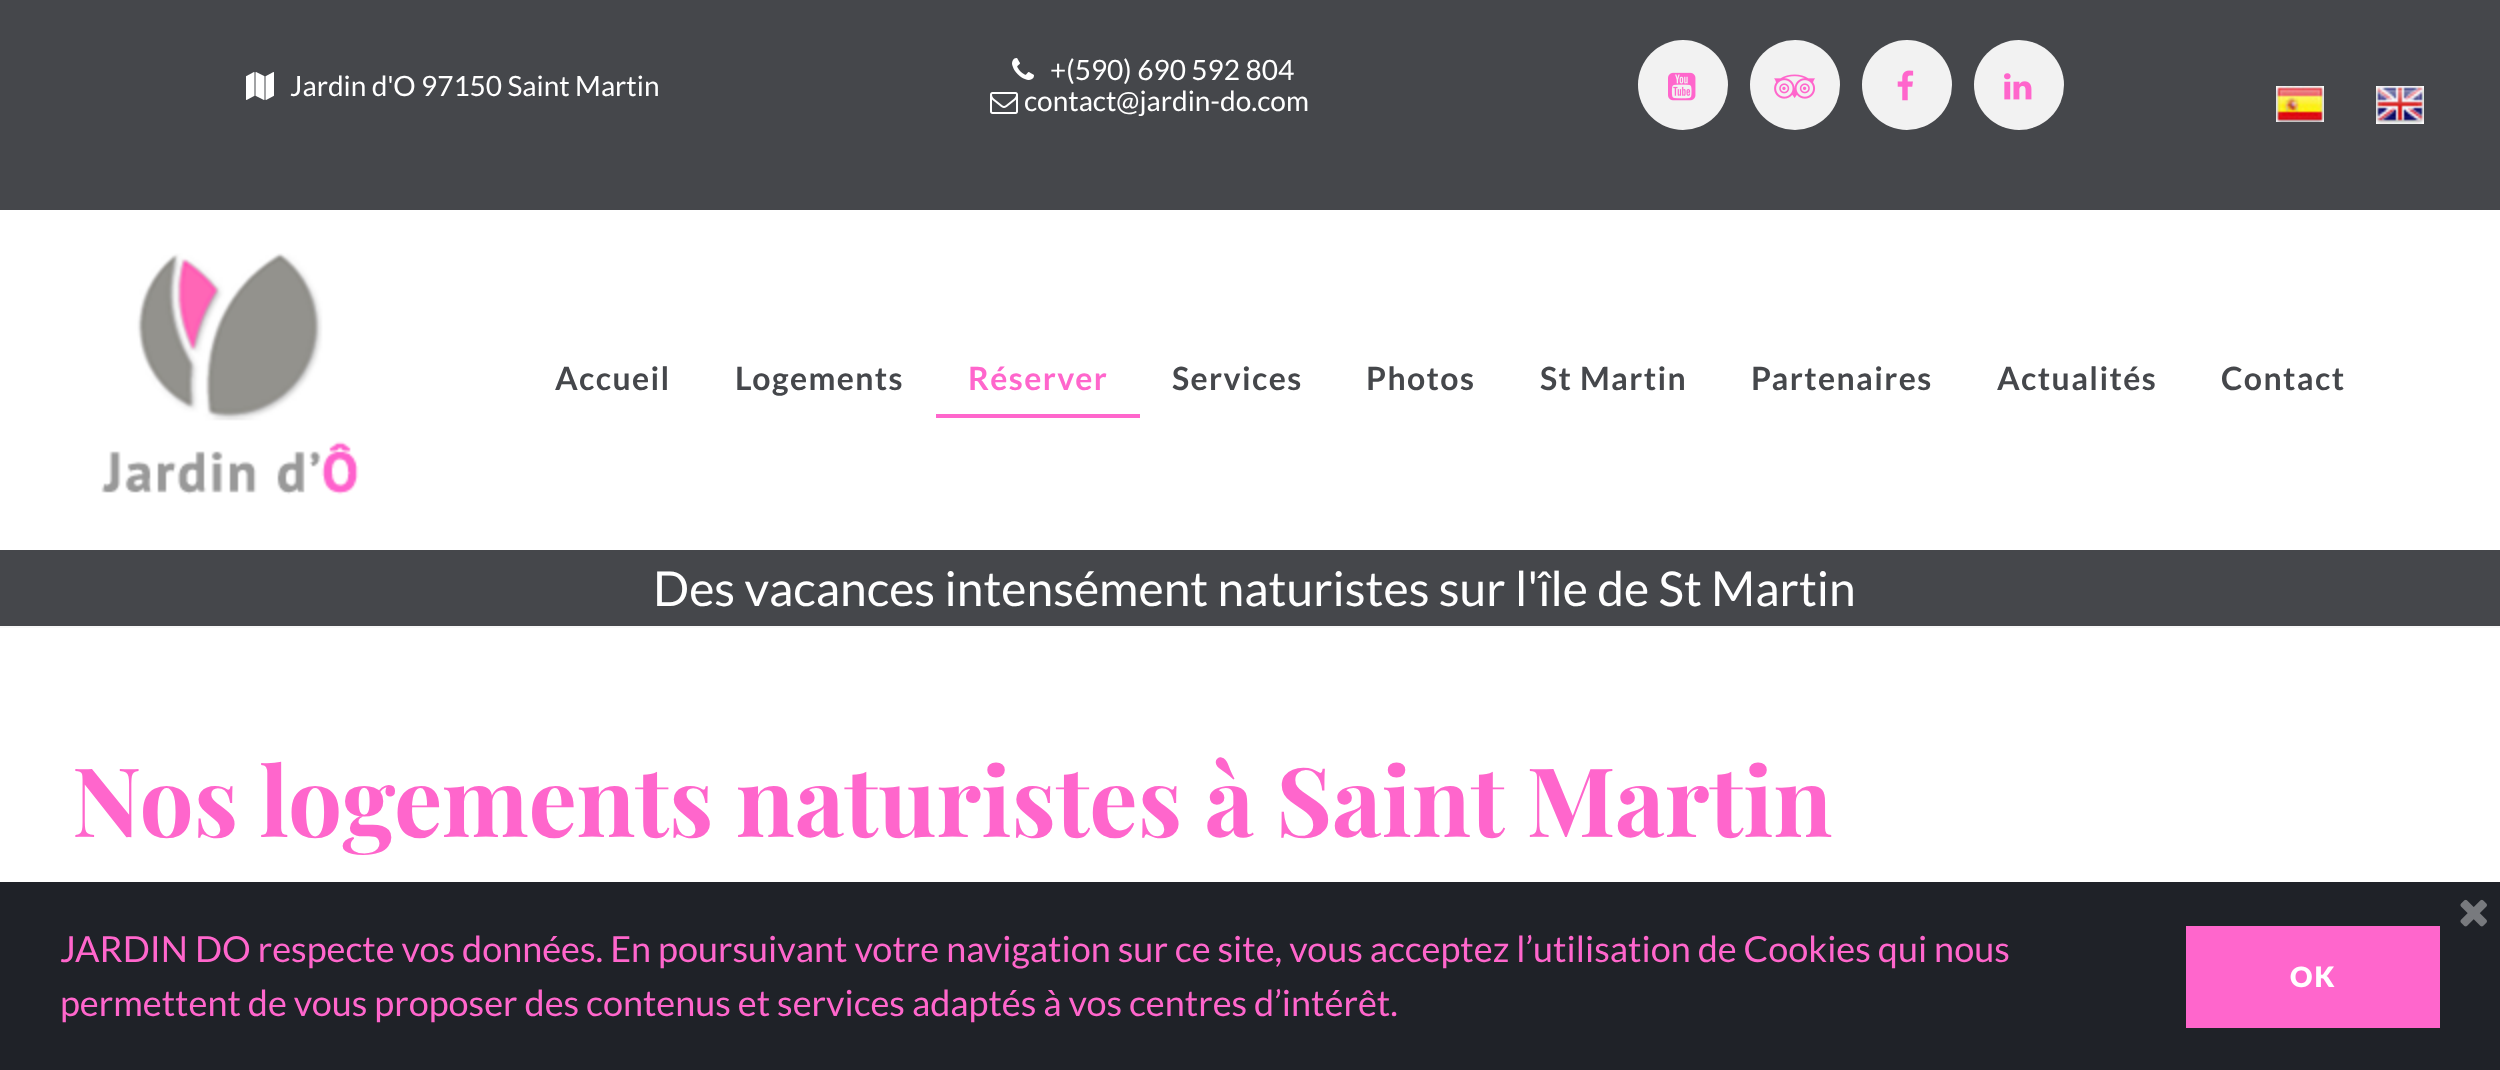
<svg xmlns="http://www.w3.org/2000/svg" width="2500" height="1070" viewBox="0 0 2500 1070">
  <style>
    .t1 { font: 28px Lato; fill: #fff; }
    .t2 { font: bold 32px Lato; letter-spacing: 1.4px; fill: #45474b; }
    .t3 { font: bold 32px Lato; letter-spacing: 1.4px; fill: #f6c; }
    .t4 { font: 48px Lato; fill: #fff; }
    .t5 { font: bold 96px Playfair Display; fill: #f6c; }
    .t6 { font: 36px Lato; fill: #f6c; }
    .t7 { font: 900 28px Lato; letter-spacing: 2px; fill: #fff; }
  </style>
  <rect width="100%" height="100%" fill="#fff"/>
  <rect x="0" y="0" width="2500" height="210" fill="#45474b"/>
  <image x="246" y="72" width="28" height="28" href="images/1.png"/>
  <text x="290" y="96" class="t1">Jardin d'O 97150 Saint Martin</text>
  <image x="1012" y="58" width="22" height="22" href="images/2.png"/>
  <text x="1050" y="80" class="t1">+(590) 690 592 804</text>
  <image x="990" y="92" width="28" height="22" href="images/3.png"/>
  <text x="1024" y="111" class="t1">contact@jardin-do.com</text>
  <circle cx="1683" cy="85" r="45" fill="#f2f2f2"/>
  <image x="1668" y="72" width="28" height="29" href="images/4.png"/>
  <circle cx="1795" cy="85" r="45" fill="#f2f2f2"/>
  <image x="1774" y="74" width="42" height="25" href="images/5.png"/>
  <circle cx="1907" cy="85" r="45" fill="#f2f2f2"/>
  <image x="1897" y="70" width="17" height="31" href="images/6.png"/>
  <circle cx="2019" cy="85" r="45" fill="#f2f2f2"/>
  <image x="2004" y="73" width="28" height="27" href="images/7.png"/>
  <image x="2276" y="86" width="48" height="36" href="images/8.png"/>
  <image x="2376" y="86" width="48" height="38" href="images/9.png"/>
  <rect x="0" y="626" width="2500" height="2" fill="#f8f8f8"/>
  <image x="101" y="253" width="258" height="242" href="images/10.png"/>
  <text x="555" y="390" class="t2">Accueil</text>
  <text x="735" y="390" class="t2">Logements</text>
  <rect x="936" y="414" width="204" height="4" fill="#f6c"/>
  <text x="968" y="390" class="t3">Réserver</text>
  <text x="1172" y="390" class="t2">Services</text>
  <text x="1366" y="390" class="t2">Photos</text>
  <text x="1540" y="390" class="t2">St Martin</text>
  <text x="1751" y="390" class="t2">Partenaires</text>
  <text x="1997" y="390" class="t2">Actualités</text>
  <text x="2221" y="390" class="t2">Contact</text>
  <rect x="0" y="550" width="2500" height="76" fill="#45474b"/>
  <text x="653" y="606" class="t4">Des vacances intensément naturistes sur l'île de St Martin</text>
  <text x="72" y="837" class="t5">Nos logements naturistes à Saint Martin</text>
  <rect x="0" y="882" width="2500" height="188" fill="#1f2228"/>
  <image x="2460" y="899" width="27" height="28" href="images/11.png"/>
  <text x="60" y="962" class="t6">JARDIN DO respecte vos données. En poursuivant votre navigation sur ce site, vous acceptez l’utilisation de Cookies qui nous</text>
  <text x="60" y="1016" class="t6">permettent de vous proposer des contenus et services adaptés à vos centres d’intérêt.</text>
  <rect x="2186" y="926" width="254" height="102" fill="#f6c"/>
  <text x="2290" y="987" class="t7">OK</text>
</svg>
